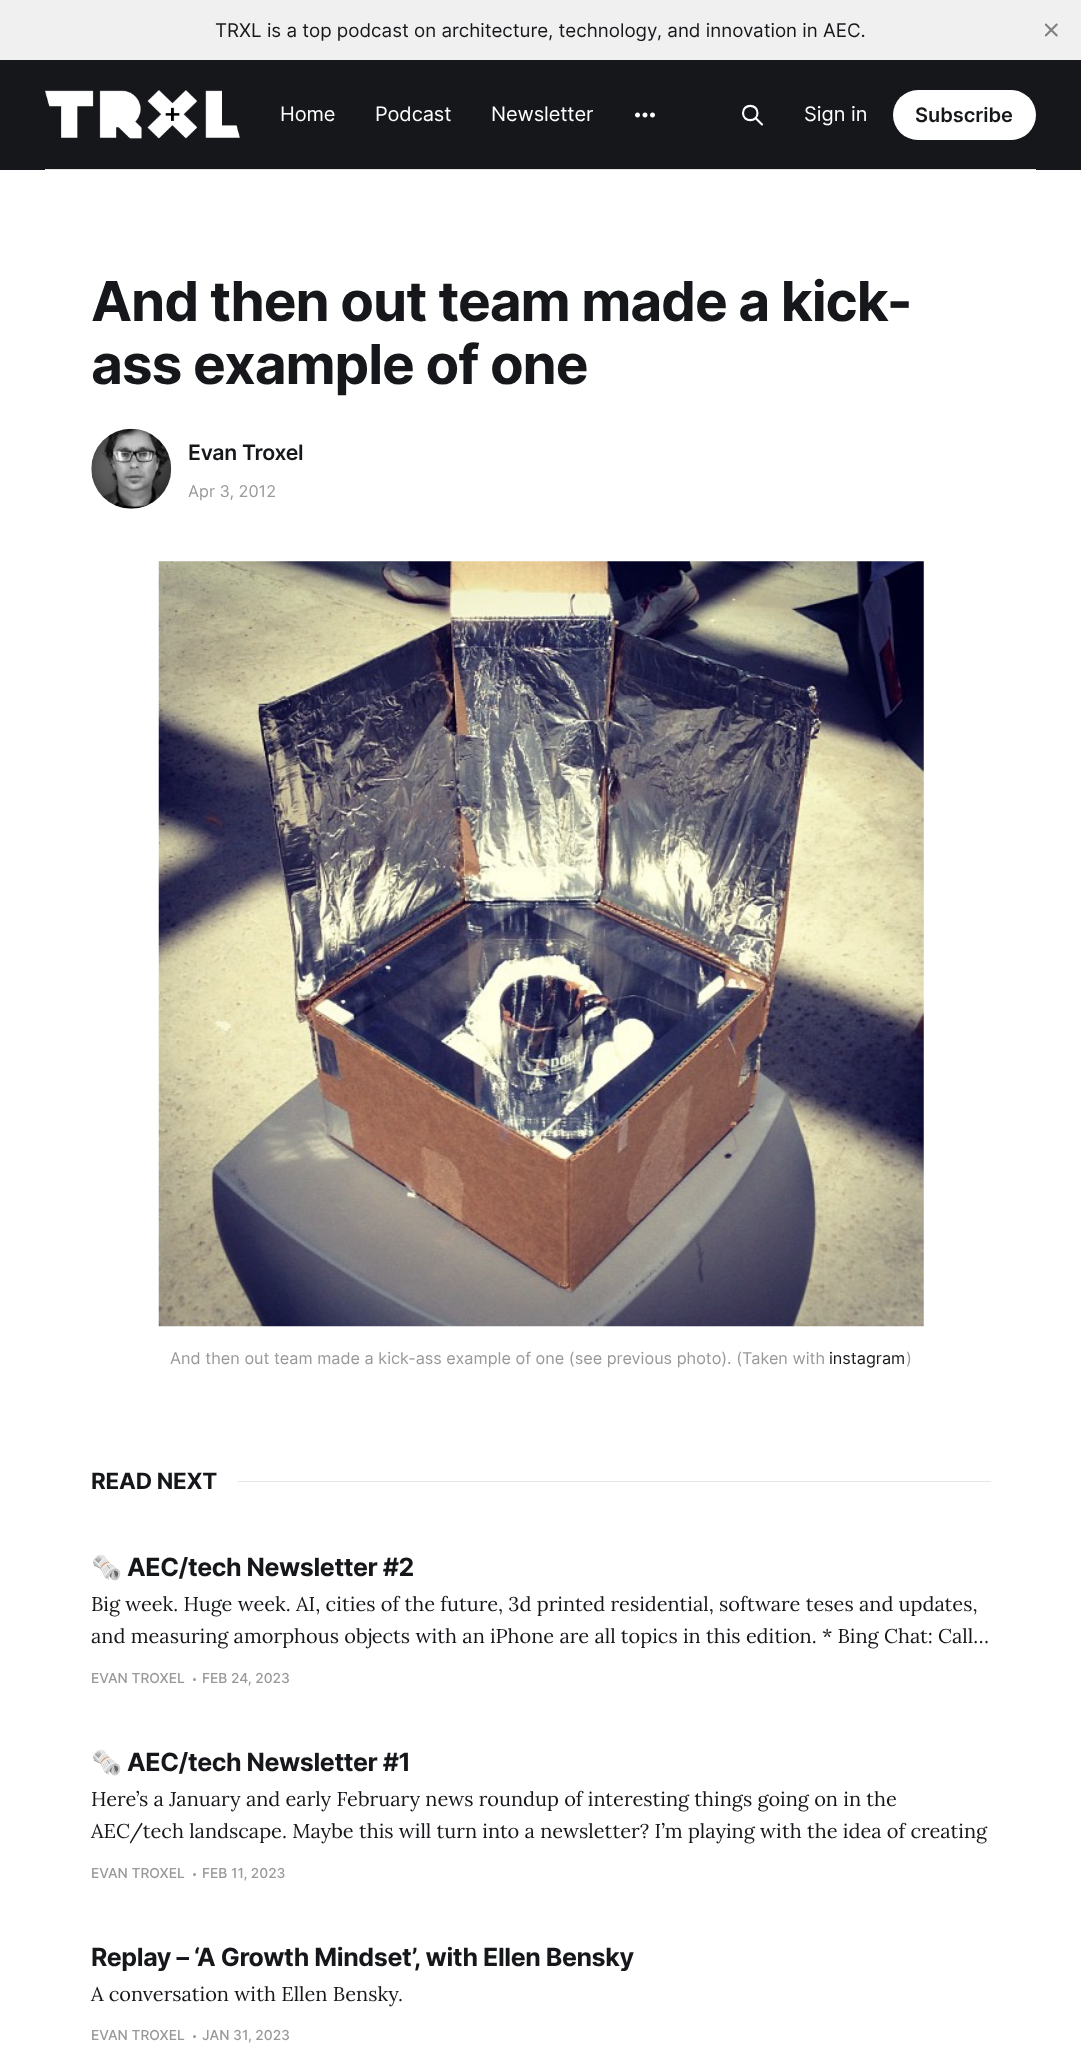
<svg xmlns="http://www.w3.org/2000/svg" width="1081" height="2071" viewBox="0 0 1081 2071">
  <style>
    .t1 { font: 18.75px Inter; fill: #15171a; }
    .t2 { font: 20px Inter; letter-spacing: -0.1px; fill: #fff; }
    .t3 { font: 20px Inter; fill: #fff; }
    .t4 { font: 600 20px Inter; fill: #15171a; }
    .t5 { font: bold 55px Inter; letter-spacing: -1.1px; fill: #15171a; }
    .t6 { font: 600 21.25px Inter; letter-spacing: -0.25px; fill: #15171a; }
    .t7 { font: 16.25px Inter; fill: #999; }
    .t8 { font: 16.25px Inter; fill: #15171a; }
    .t9 { font: bold 22.5px Inter; letter-spacing: -0.25px; fill: #15171a; }
    .t10 { font: bold 25px Noto Color Emoji; letter-spacing: -0.4px; fill: #15171a; }
    .t11 { font: bold 25px Inter; letter-spacing: -0.4px; fill: #15171a; }
    .t12 { font: 20px Lora; fill: #15171a; }
    .t13 { font: 500 13.75px Inter; fill: #999; }
  </style>
  <rect width="100%" height="100%" fill="#fff"/>
  <rect x="0" y="0" width="1081" height="60" fill="#f0f0f0"/>
  <text x="215" y="37" class="t1">TRXL is a top podcast on architecture, technology, and innovation in AEC.</text>
  <image x="1044" y="23" width="14" height="14" href="images/1.png"/>
  <rect x="0" y="60" width="1081" height="110" fill="#15171a"/>
  <rect x="45" y="169" width="991" height="1" fill="#e6e6e6"/>
  <image x="45" y="90" width="195" height="49" href="images/2.png"/>
  <text x="280" y="121" class="t2">Home</text>
  <text x="375" y="121" class="t2">Podcast</text>
  <text x="491" y="121" class="t2">Newsletter</text>
  <image x="635" y="112" width="20" height="6" href="images/3.png"/>
  <path d="M762 124.5L755.5 118M757.5 113C757.5 122.5 743 122.5 743 113C743 103.5 757.5 103.5 757.5 113Z" fill="none" stroke="#fff" stroke-width="2.1" stroke-linecap="round" stroke-linejoin="round"/>
  <text x="804" y="121" class="t3">Sign in</text>
  <rect x="893" y="90" width="143" height="50" rx="25" fill="#fff"/>
  <text x="915" y="122" class="t4">Subscribe</text>
  <text x="91" y="321" class="t5">And then out team made a kick-</text>
  <text x="91" y="384" class="t5">ass example of one</text>
  <image x="91" y="428" width="81" height="81" href="images/4.png"/>
  <text x="188" y="460" class="t6">Evan Troxel</text>
  <text x="188" y="497" class="t7">Apr 3, 2012</text>
  <image x="158" y="561" width="766" height="766" href="images/5.png"/>
  <text x="170" y="1364" class="t7">And then out team made a kick-ass example of one (see previous photo). (Taken with</text>
  <text x="829" y="1364" class="t8">instagram</text>
  <text x="906" y="1364" class="t7">)</text>
  <text x="91" y="1489" class="t9">READ NEXT</text>
  <rect x="238" y="1481" width="753" height="1" fill="#e6e6e6"/>
  <text x="91" y="1576" class="t10">🗞️</text>
  <text x="127" y="1576" class="t11">AEC/tech Newsletter #2</text>
  <text x="91" y="1611" class="t12">Big week. Huge week. AI, cities of the future, 3d printed residential, software teses and updates,</text>
  <text x="91" y="1643" class="t12">and measuring amorphous objects with an iPhone are all topics in this edition. * Bing Chat: Call…</text>
  <text x="91" y="1683" class="t13">EVAN TROXEL</text>
  <circle cx="194.5" cy="1679.5" r="1.5" fill="#999"/>
  <text x="202" y="1683" class="t13">FEB 24, 2023</text>
  <text x="91" y="1771" class="t10">🗞️</text>
  <text x="127" y="1771" class="t11">AEC/tech Newsletter #1</text>
  <text x="91" y="1806" class="t12">Here’s a January and early February news roundup of interesting things going on in the</text>
  <text x="91" y="1838" class="t12">AEC/tech landscape. Maybe this will turn into a newsletter? I’m playing with the idea of creating</text>
  <text x="91" y="1878" class="t13">EVAN TROXEL</text>
  <circle cx="194.5" cy="1874.5" r="1.5" fill="#999"/>
  <text x="202" y="1878" class="t13">FEB 11, 2023</text>
  <text x="91" y="1966" class="t11">Replay – ‘A Growth Mindset’, with Ellen Bensky</text>
  <text x="91" y="2001" class="t12">A conversation with Ellen Bensky.</text>
  <text x="91" y="2040" class="t13">EVAN TROXEL</text>
  <circle cx="194.5" cy="2036.5" r="1.5" fill="#999"/>
  <text x="202" y="2040" class="t13">JAN 31, 2023</text>
</svg>
